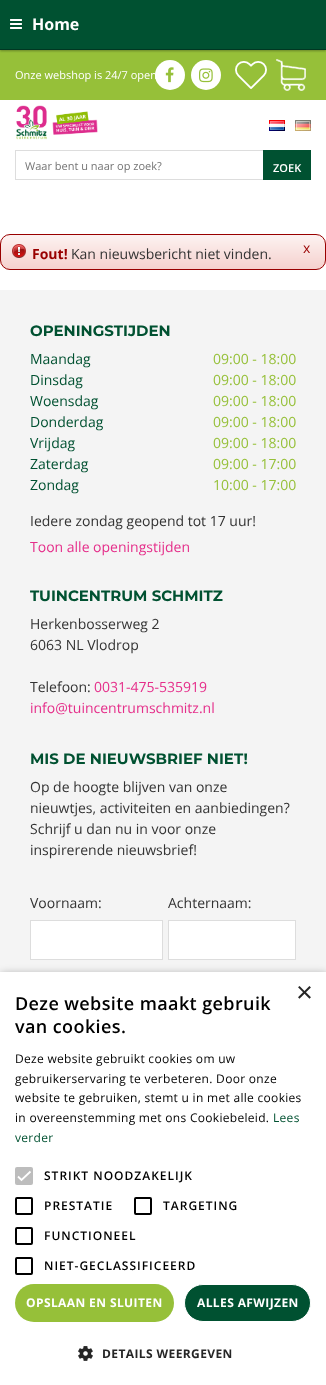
<svg xmlns="http://www.w3.org/2000/svg" width="326" height="1385" viewBox="0 0 326 1385">
  <style>
    .t1 { font: bold 16px Open Sans; fill: #fff; }
    .t2 { font: 11px Open Sans; fill: #fff; }
    .t3 { font: 11px Open Sans; fill: #757575; }
    .t4 { font: 600 11px Open Sans; fill: #fff; }
    .t5 { font: bold 14px Open Sans; fill: #900; }
    .t6 { font: 14px Open Sans; fill: #333; }
    .t7 { font: 14px Open Sans; fill: #900; }
    .t8 { font: bold 15px Montserrat; fill: #005131; }
    .t9 { font: 14px Open Sans; fill: #005131; }
    .t10 { font: 14px Open Sans; fill: #96c039; }
    .t11 { font: 14px Open Sans; fill: #e52e8a; }
    .t12 { font: 29px Liberation Sans; fill: #262626; }
    .t13 { font: 600 18px Open Sans; letter-spacing: 0.4px; fill: #000; }
    .t14 { font: 12px Open Sans; letter-spacing: 0.3px; fill: #000; }
    .t15 { font: 12px Open Sans; letter-spacing: 0.3px; fill: #005131; }
    .t16 { font: 600 12px Open Sans; letter-spacing: 1px; fill: #000; }
    .t17 { font: bold 12px Open Sans; letter-spacing: 0.4px; fill: #fff; }
    .t18 { font: bold 12px Open Sans; letter-spacing: 0.4px; fill: #262626; }
  </style>
  <rect width="100%" height="100%" fill="#fff"/>
  <rect x="0" y="50" width="326" height="50" fill="#96c039"/>
  <rect x="0" y="1" width="326" height="50" fill="#0000004d" filter="blur(1px)"/>
  <rect x="0" y="0" width="326" height="49" fill="#005131"/>
  <rect x="0" y="49" width="326" height="1" fill="#003722"/>
  <image x="10" y="19" width="12" height="10" href="images/1.png"/>
  <text x="32" y="30" class="t1">Home</text>
  <text x="15" y="79" class="t2">Onze webshop is 24/7 open</text>
  <circle cx="170" cy="75" r="15" fill="#fff"/>
  <image x="165" y="67" width="9" height="16" href="images/2.png"/>
  <circle cx="206" cy="75" r="15" fill="#fff"/>
  <image x="199" y="68" width="14" height="15" href="images/3.png"/>
  <image x="235" y="61" width="32" height="28" href="images/4.png"/>
  <image x="276" y="59" width="30" height="32" href="images/5.png"/>
  <image x="16" y="105" width="82" height="35" href="images/6.png"/>
  <image x="269" y="120" width="16" height="11" href="images/7.png"/>
  <image x="295" y="120" width="16" height="11" href="images/8.png"/>
  <rect x="15.5" y="150.5" width="295" height="29" fill="none" stroke="#ddd"/>
  <text x="25" y="170" class="t3">Waar bent u naar op zoek?</text>
  <rect x="263" y="150" width="48" height="30" fill="#005131"/>
  <text x="273" y="172" class="t4">ZOEK</text>
  <image x="0" y="235" width="326" height="35" href="images/9.png"/>
  <rect x="0.5" y="234.5" width="325" height="35" rx="9.5" fill="none" stroke="#900"/>
  <image x="12" y="244" width="14" height="14" href="images/10.png"/>
  <text x="32" y="259" class="t5">Fout!</text>
  <text x="71" y="259" class="t6">Kan nieuwsbericht niet vinden.</text>
  <text x="303" y="253" class="t7">x</text>
  <rect x="0" y="290" width="326" height="682" fill="#f4f4f4"/>
  <text x="30" y="336" class="t8">OPENINGSTIJDEN</text>
  <text x="30" y="364" class="t9">Maandag</text>
  <text x="213" y="364" class="t10">09:00 - 18:00</text>
  <text x="30" y="385" class="t9">Dinsdag</text>
  <text x="213" y="385" class="t10">09:00 - 18:00</text>
  <text x="30" y="406" class="t9">Woensdag</text>
  <text x="213" y="406" class="t10">09:00 - 18:00</text>
  <text x="30" y="427" class="t9">Donderdag</text>
  <text x="213" y="427" class="t10">09:00 - 18:00</text>
  <text x="30" y="448" class="t9">Vrijdag</text>
  <text x="213" y="448" class="t10">09:00 - 18:00</text>
  <text x="30" y="469" class="t9">Zaterdag</text>
  <text x="213" y="469" class="t10">09:00 - 17:00</text>
  <text x="30" y="490" class="t9">Zondag</text>
  <text x="213" y="490" class="t10">10:00 - 17:00</text>
  <text x="30" y="526" class="t6">Iedere zondag geopend tot 17 uur!</text>
  <text x="30" y="552" class="t11">Toon alle openingstijden</text>
  <text x="30" y="601" class="t8">TUINCENTRUM SCHMITZ</text>
  <text x="30" y="629" class="t6">Herkenbosserweg 2</text>
  <text x="30" y="650" class="t6">6063 NL Vlodrop</text>
  <text x="30" y="692" class="t6">Telefoon:</text>
  <text x="94" y="692" class="t11">0031-475-535919</text>
  <text x="30" y="713" class="t11">info@tuincentrumschmitz.nl</text>
  <text x="30" y="764" class="t8">MIS DE NIEUWSBRIEF NIET!</text>
  <text x="30" y="792" class="t6">Op de hoogte blijven van onze</text>
  <text x="30" y="813" class="t6">nieuwtjes, activiteiten en aanbiedingen?</text>
  <text x="30" y="834" class="t6">Schrijf u dan nu in voor onze</text>
  <text x="30" y="855" class="t6">inspirerende nieuwsbrief!</text>
  <text x="30" y="908" class="t6">Voornaam:</text>
  <rect x="30.5" y="920.5" width="132" height="39" fill="#fff" stroke="#ddd"/>
  <text x="168" y="908" class="t6">Achternaam:</text>
  <rect x="168.5" y="920.5" width="127" height="39" fill="#fff" stroke="#ddd"/>
  <rect x="1" y="974" width="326" height="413" fill="#00000059" filter="blur(4px)"/>
  <rect x="0" y="972" width="326" height="413" fill="#fff"/>
  <text x="296" y="1002" class="t12">×</text>
  <text x="15" y="1010" class="t13">Deze website maakt gebruik</text>
  <text x="15" y="1033" class="t13">van cookies.</text>
  <text x="15" y="1063" class="t14">Deze website gebruikt cookies om uw</text>
  <text x="15" y="1083" class="t14">gebruikerservaring te verbeteren. Door onze</text>
  <text x="15" y="1102" class="t14">website te gebruiken, stemt u in met alle cookies</text>
  <text x="15" y="1122" class="t14">in overeenstemming met ons Cookiebeleid.</text>
  <text x="273" y="1122" class="t15">Lees</text>
  <text x="15" y="1142" class="t15">verder</text>
  <rect x="15" y="1167" width="18" height="18" rx="2" fill="#bdbdbd"/>
  <path d="M18 1176.5L21.5 1180L30.5 1171.5" fill="none" stroke="#fff" stroke-width="1.8"/>
  <text x="44" y="1180" class="t16">STRIKT NOODZAKELIJK</text>
  <rect x="16" y="1198" width="16" height="16" rx="1" fill="none" stroke="#000" stroke-width="2"/>
  <text x="44" y="1210" class="t16">PRESTATIE</text>
  <rect x="135" y="1198" width="16" height="16" rx="1" fill="none" stroke="#000" stroke-width="2"/>
  <text x="163" y="1210" class="t16">TARGETING</text>
  <rect x="16" y="1228" width="16" height="16" rx="1" fill="none" stroke="#000" stroke-width="2"/>
  <text x="44" y="1240" class="t16">FUNCTIONEEL</text>
  <rect x="16" y="1258" width="16" height="16" rx="1" fill="none" stroke="#000" stroke-width="2"/>
  <text x="44" y="1270" class="t16">NIET-GECLASSIFICEERD</text>
  <rect x="15" y="1284" width="159" height="38" rx="19" fill="#96c039"/>
  <text x="26" y="1307" class="t17">OPSLAAN EN SLUITEN</text>
  <rect x="184.5" y="1284.5" width="126" height="37" rx="18.5" fill="#005131" stroke="#fff"/>
  <text x="197" y="1307" class="t17">ALLES AFWIJZEN</text>
  <image x="78" y="1346" width="15" height="15" href="images/11.png"/>
  <text x="102" y="1358" class="t18">DETAILS WEERGEVEN</text>
</svg>
